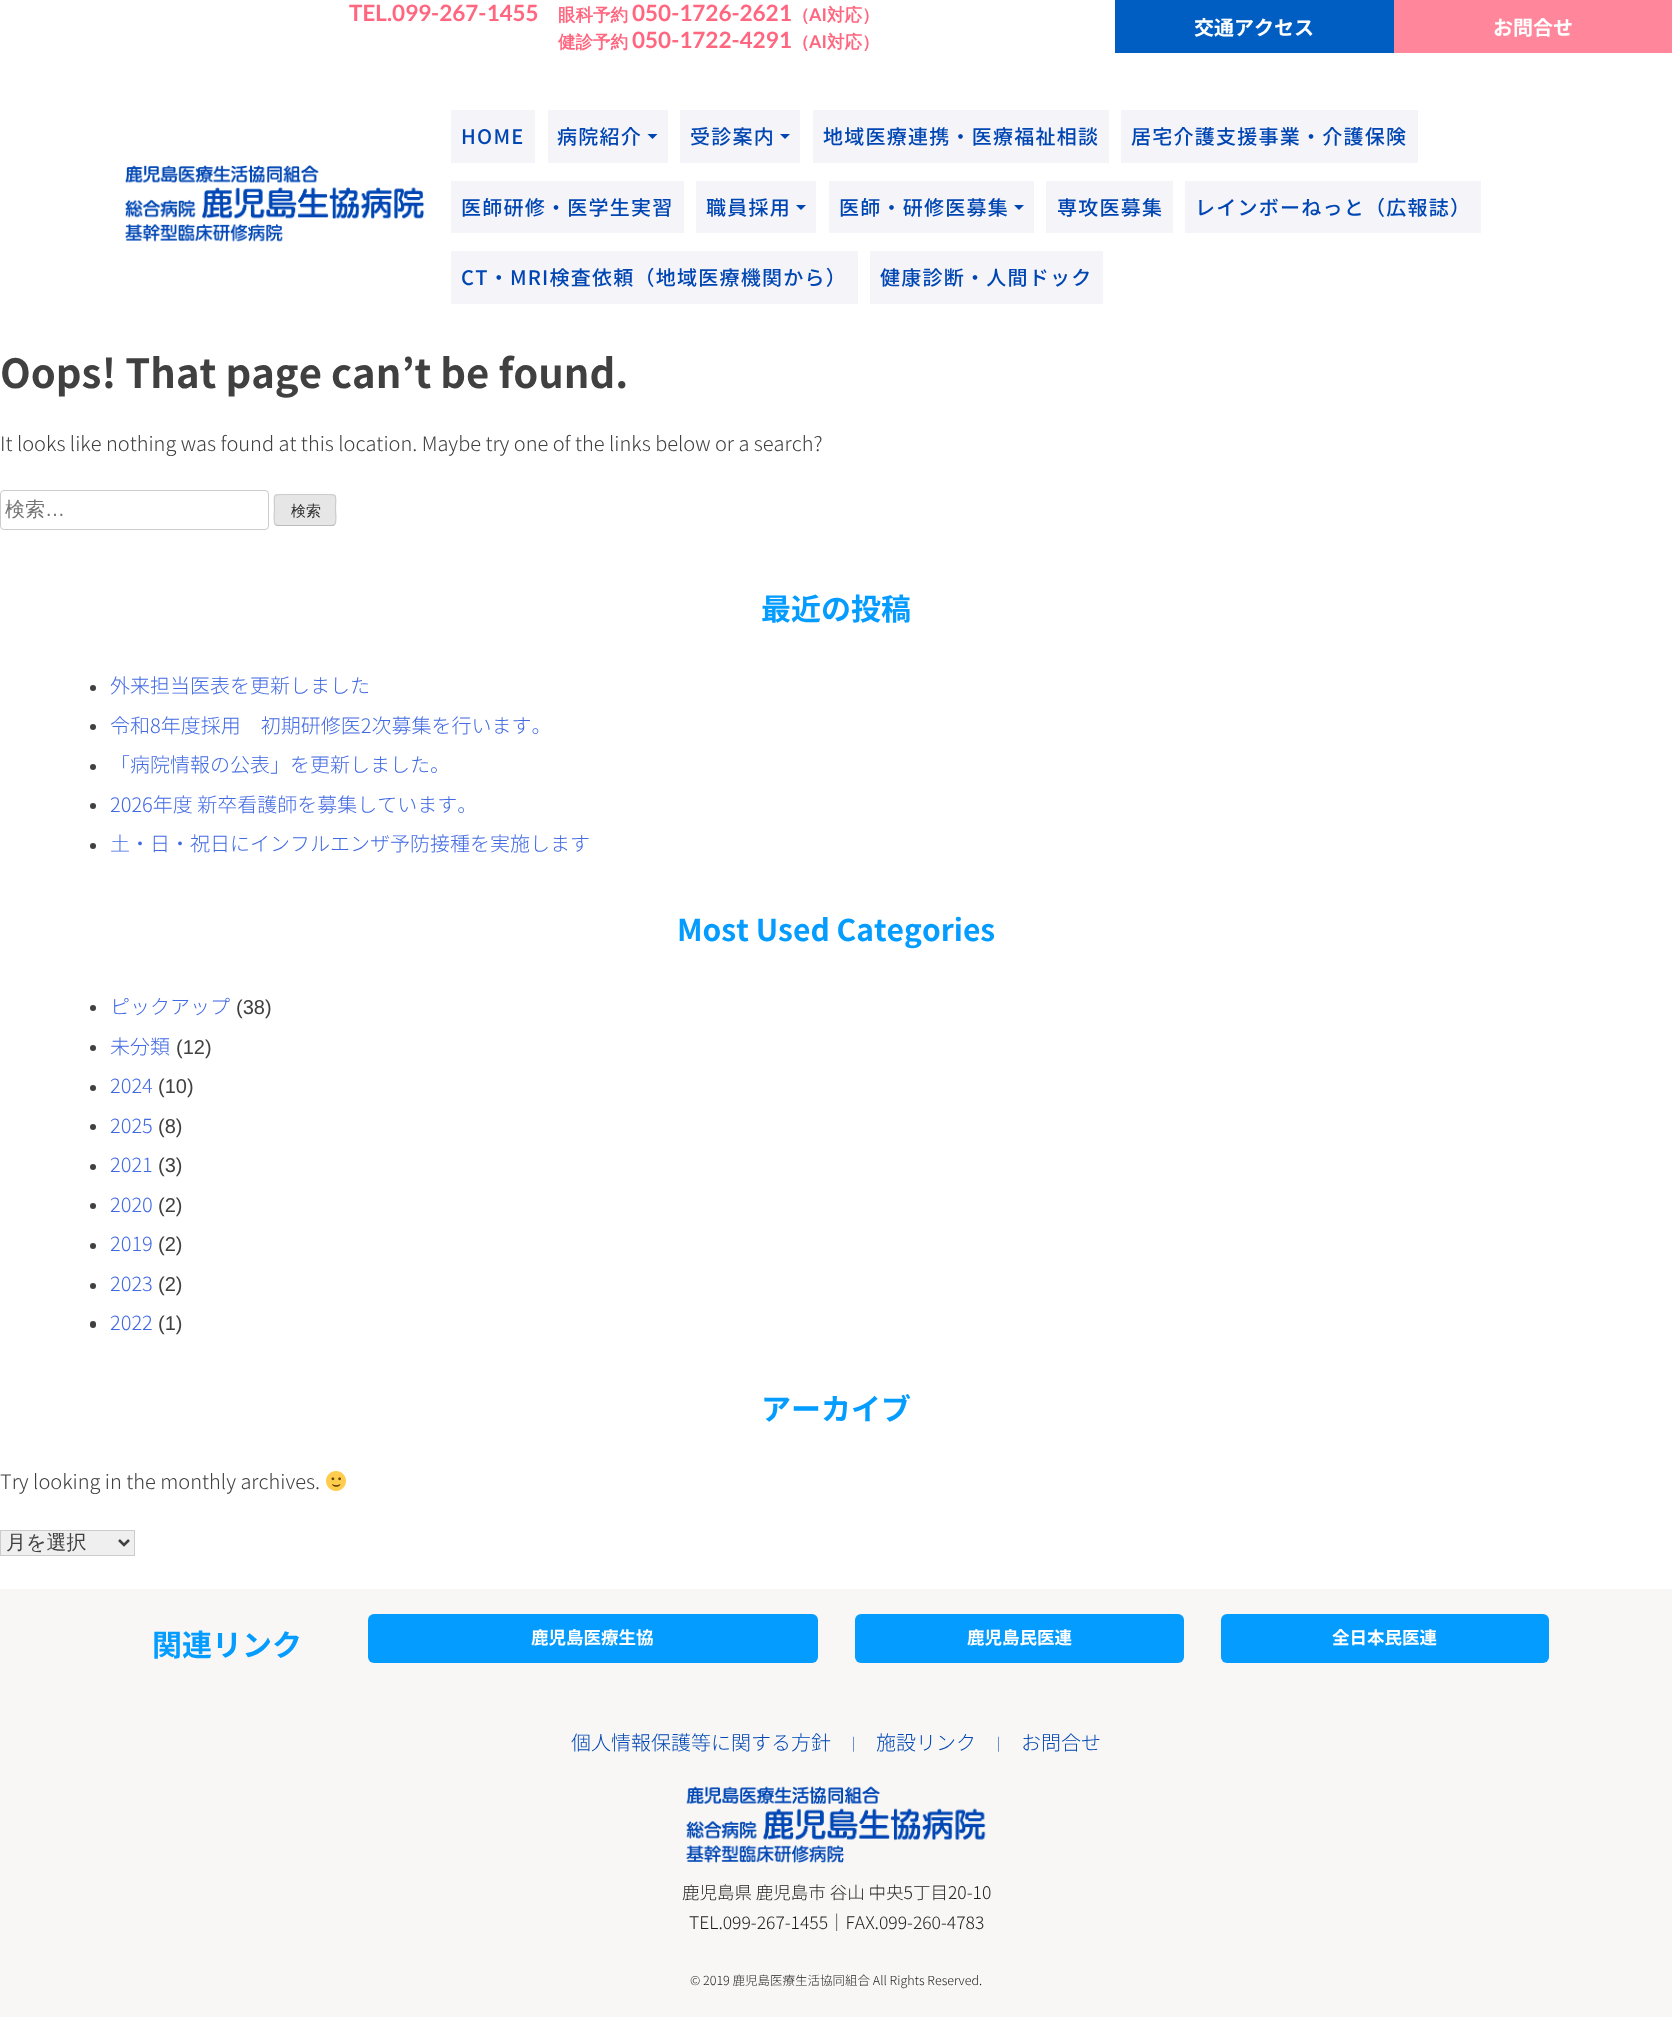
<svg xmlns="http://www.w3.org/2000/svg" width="1672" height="2017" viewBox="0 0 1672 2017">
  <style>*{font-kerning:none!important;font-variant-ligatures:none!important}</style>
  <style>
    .t1 { font: bold 22.5px Lato; fill: #ff667f; }
    .t2 { font: bold 17.5px WenQuanYi Zen Hei; fill: #ff667f; }
    .t3 { font: bold 17.5px Lato; fill: #ff667f; }
    .t4 { font: bold 20px Noto Sans JP; fill: #fefffe; }
    .t5 { font: 500 20px Noto Sans JP; letter-spacing: 1.25px; fill: #0046b3; }
    .t6 { font: bold 40px Noto Sans JP; fill: #404040; }
    .t7 { font: 300 20px Noto Sans JP; fill: #404040; }
    .t8 { font: 500 20px WenQuanYi Zen Hei; fill: #757575; }
    .t9 { font: 20px Liberation Sans; fill: #757575; }
    .t10 { font: 500 15px WenQuanYi Zen Hei; fill: #2e2e2e; }
    .t11 { font: bold 30px Noto Sans JP; fill: #059cff; }
    .t12 { font: 300 20px Noto Sans JP; fill: #4169e1; }
    .t13 { font: 20px Liberation Sans; fill: #404040; }
    .t14 { font: 500 20px WenQuanYi Zen Hei; fill: #404040; }
    .t15 { font: bold 17.5px Noto Sans JP; fill: #fefffe; }
    .t16 { font: 300 20px Noto Sans JP; fill: #0046b3; }
    .t17 { font: 300 15px Noto Sans JP; fill: #0046b3; }
    .t18 { font: 300 17.5px Noto Sans JP; fill: #1d1d1d; }
    .t19 { font: 300 12.5px Noto Sans JP; fill: #1d1d1d; }
  </style>
  <rect width="100%" height="100%" fill="#fff"/>
  <text x="349" y="21" class="t1">TEL.099-267-1455</text>
  <text x="558" y="21" class="t2">眼科予約</text>
  <text x="632" y="21" class="t1">050-1726-2621</text>
  <text x="792" y="21" class="t2">（</text>
  <text x="809" y="21" class="t3">AI</text>
  <text x="827" y="21" class="t2">対応）</text>
  <text x="558" y="48" class="t2">健診予約</text>
  <text x="632" y="48" class="t1">050-1722-4291</text>
  <text x="792" y="48" class="t2">（</text>
  <text x="809" y="48" class="t3">AI</text>
  <text x="827" y="48" class="t2">対応）</text>
  <rect x="1115" y="0" width="279" height="53" fill="#005dc1"/>
  <text x="1194" y="35" class="t4">交通アクセス</text>
  <rect x="1394" y="0" width="278" height="53" fill="#ff869b"/>
  <text x="1493" y="35" class="t4">お問合せ</text>
  <image x="125" y="165" width="300" height="77" href="images/1.png"/>
  <rect x="451" y="110" width="84" height="53" fill="#f5f4f9"/>
  <text x="461" y="144" class="t5">HOME</text>
  <rect x="548" y="110" width="120" height="53" fill="#f5f4f9"/>
  <text x="557" y="144" class="t5">病院紹介</text>
  <path d="M647.5 134H657.5L652.5 139Z" fill="#0046b3"/>
  <rect x="680" y="110" width="120" height="53" fill="#f5f4f9"/>
  <text x="690" y="144" class="t5">受診案内</text>
  <path d="M780 134H790L785 139Z" fill="#0046b3"/>
  <rect x="813" y="110" width="296" height="53" fill="#f5f4f9"/>
  <text x="823" y="144" class="t5">地域医療連携・医療福祉相談</text>
  <rect x="1121" y="110" width="297" height="53" fill="#f5f4f9"/>
  <text x="1131" y="144" class="t5">居宅介護支援事業・介護保険</text>
  <rect x="451" y="181" width="233" height="52" fill="#f5f4f9"/>
  <text x="461" y="215" class="t5">医師研修・医学生実習</text>
  <rect x="696" y="181" width="120" height="52" fill="#f5f4f9"/>
  <text x="706" y="215" class="t5">職員採用</text>
  <path d="M796 205H806L801 210Z" fill="#0046b3"/>
  <rect x="829" y="181" width="205" height="52" fill="#f5f4f9"/>
  <text x="839" y="215" class="t5">医師・研修医募集</text>
  <path d="M1014 205H1024L1019 210Z" fill="#0046b3"/>
  <rect x="1046" y="181" width="127" height="52" fill="#f5f4f9"/>
  <text x="1057" y="215" class="t5">専攻医募集</text>
  <rect x="1185" y="181" width="296" height="52" fill="#f5f4f9"/>
  <text x="1195" y="215" class="t5">レインボーねっと（広報誌）</text>
  <rect x="451" y="251" width="407" height="53" fill="#f5f4f9"/>
  <text x="461" y="285" class="t5">CT・MRI検査依頼（地域医療機関から）</text>
  <rect x="870" y="251" width="233" height="53" fill="#f5f4f9"/>
  <text x="880" y="285" class="t5">健康診断・人間ドック</text>
  <text x="0" y="388" class="t6">Oops! That page can’t be found.</text>
  <text x="0" y="451" class="t7">It looks like nothing was found at this location. Maybe try one of the links below or a search?</text>
  <rect x="0.5" y="490.5" width="268" height="39" rx="3.5" fill="none" stroke="#ccc"/>
  <text x="5" y="516" class="t8">検索</text>
  <text x="45" y="516" class="t9">…</text>
  <rect x="274" y="494" width="62" height="32" rx="4" fill="#e6e6e6"/>
  <path d="M334.5 524.5L333 525.5H277L275.5 524.5" fill="none" stroke="#bbb" stroke-width="1.2"/>
  <path d="M275.5 524.5C273 522.5 274.5 513 274.5 510C274.5 493.5 271 494.5 286.5 494.5H323.5C339 494.5 335.5 493.5 335.5 510C335.5 513 337 522.5 334.5 524.5" fill="none" stroke="#ccc" stroke-width="1.2"/>
  <text x="291" y="516" class="t10">検索</text>
  <text x="761" y="620" class="t11">最近の投稿</text>
  <circle cx="93" cy="688" r="3" fill="#404040"/>
  <text x="110" y="693" class="t12">外来担当医表を更新しました</text>
  <circle cx="93" cy="727" r="3" fill="#404040"/>
  <text x="110" y="733" class="t12">令和8年度採用　初期研修医2次募集を行います。</text>
  <circle cx="93" cy="767" r="3" fill="#404040"/>
  <text x="110" y="772" class="t12">「病院情報の公表」を更新しました。</text>
  <circle cx="93" cy="806" r="3" fill="#404040"/>
  <text x="110" y="812" class="t12">2026年度 新卒看護師を募集しています。</text>
  <circle cx="93" cy="846" r="3" fill="#404040"/>
  <text x="110" y="851" class="t12">土・日・祝日にインフルエンザ予防接種を実施します</text>
  <text x="677" y="941" class="t11">Most Used Categories</text>
  <circle cx="93" cy="1008" r="3" fill="#404040"/>
  <text x="110" y="1014" class="t12">ピックアップ</text>
  <text x="236" y="1014" class="t13">(38)</text>
  <circle cx="93" cy="1048" r="3" fill="#404040"/>
  <text x="110" y="1054" class="t12">未分類</text>
  <text x="176" y="1054" class="t13">(12)</text>
  <circle cx="93" cy="1088" r="3" fill="#404040"/>
  <text x="110" y="1093" class="t12">2024</text>
  <text x="158" y="1093" class="t13">(10)</text>
  <circle cx="93" cy="1127" r="3" fill="#404040"/>
  <text x="110" y="1133" class="t12">2025</text>
  <text x="158" y="1133" class="t13">(8)</text>
  <circle cx="93" cy="1167" r="3" fill="#404040"/>
  <text x="110" y="1172" class="t12">2021</text>
  <text x="158" y="1172" class="t13">(3)</text>
  <circle cx="93" cy="1206" r="3" fill="#404040"/>
  <text x="110" y="1212" class="t12">2020</text>
  <text x="158" y="1212" class="t13">(2)</text>
  <circle cx="93" cy="1246" r="3" fill="#404040"/>
  <text x="110" y="1251" class="t12">2019</text>
  <text x="158" y="1251" class="t13">(2)</text>
  <circle cx="93" cy="1286" r="3" fill="#404040"/>
  <text x="110" y="1291" class="t12">2023</text>
  <text x="158" y="1291" class="t13">(2)</text>
  <rect x="90" y="1321" width="6" height="7" rx="3" fill="#404040"/>
  <text x="110" y="1330" class="t12">2022</text>
  <text x="158" y="1330" class="t13">(1)</text>
  <text x="761" y="1420" class="t11">アーカイブ</text>
  <text x="0" y="1489" class="t7">Try looking in the monthly archives.</text>
  <image x="326" y="1471" width="20" height="20" href="images/2.png"/>
  <rect x="0.5" y="1530.5" width="134" height="25" fill="#efefef" stroke="#ccc"/>
  <path d="M119 1540L124 1545L129 1540" fill="none" stroke="#404040" stroke-width="2.5"/>
  <text x="6" y="1549" class="t14">月を選択</text>
  <rect x="0" y="1589" width="1672" height="428" fill="#f8f7f5"/>
  <text x="152" y="1656" class="t11">関連リンク</text>
  <rect x="368" y="1614" width="450" height="49" rx="6" fill="#059cff"/>
  <text x="531" y="1644" class="t15">鹿児島医療生協</text>
  <rect x="855" y="1614" width="329" height="49" rx="6" fill="#059cff"/>
  <text x="967" y="1644" class="t15">鹿児島民医連</text>
  <rect x="1221" y="1614" width="328" height="49" rx="6" fill="#059cff"/>
  <text x="1332" y="1644" class="t15">全日本民医連</text>
  <text x="571" y="1750" class="t16">個人情報保護等に関する方針</text>
  <text x="846" y="1750" class="t17">｜</text>
  <text x="876" y="1750" class="t16">施設リンク</text>
  <text x="991" y="1750" class="t17">｜</text>
  <text x="1021" y="1750" class="t16">お問合せ</text>
  <image x="686" y="1786" width="300" height="77" href="images/3.png"/>
  <text x="682" y="1899" class="t18">鹿児島県 鹿児島市 谷山 中央5丁目20-10</text>
  <text x="689" y="1929" class="t18">TEL.099-267-1455｜FAX.099-260-4783</text>
  <text x="690" y="1985" class="t19">© 2019 鹿児島医療生活協同組合 All Rights Reserved.</text>
</svg>
